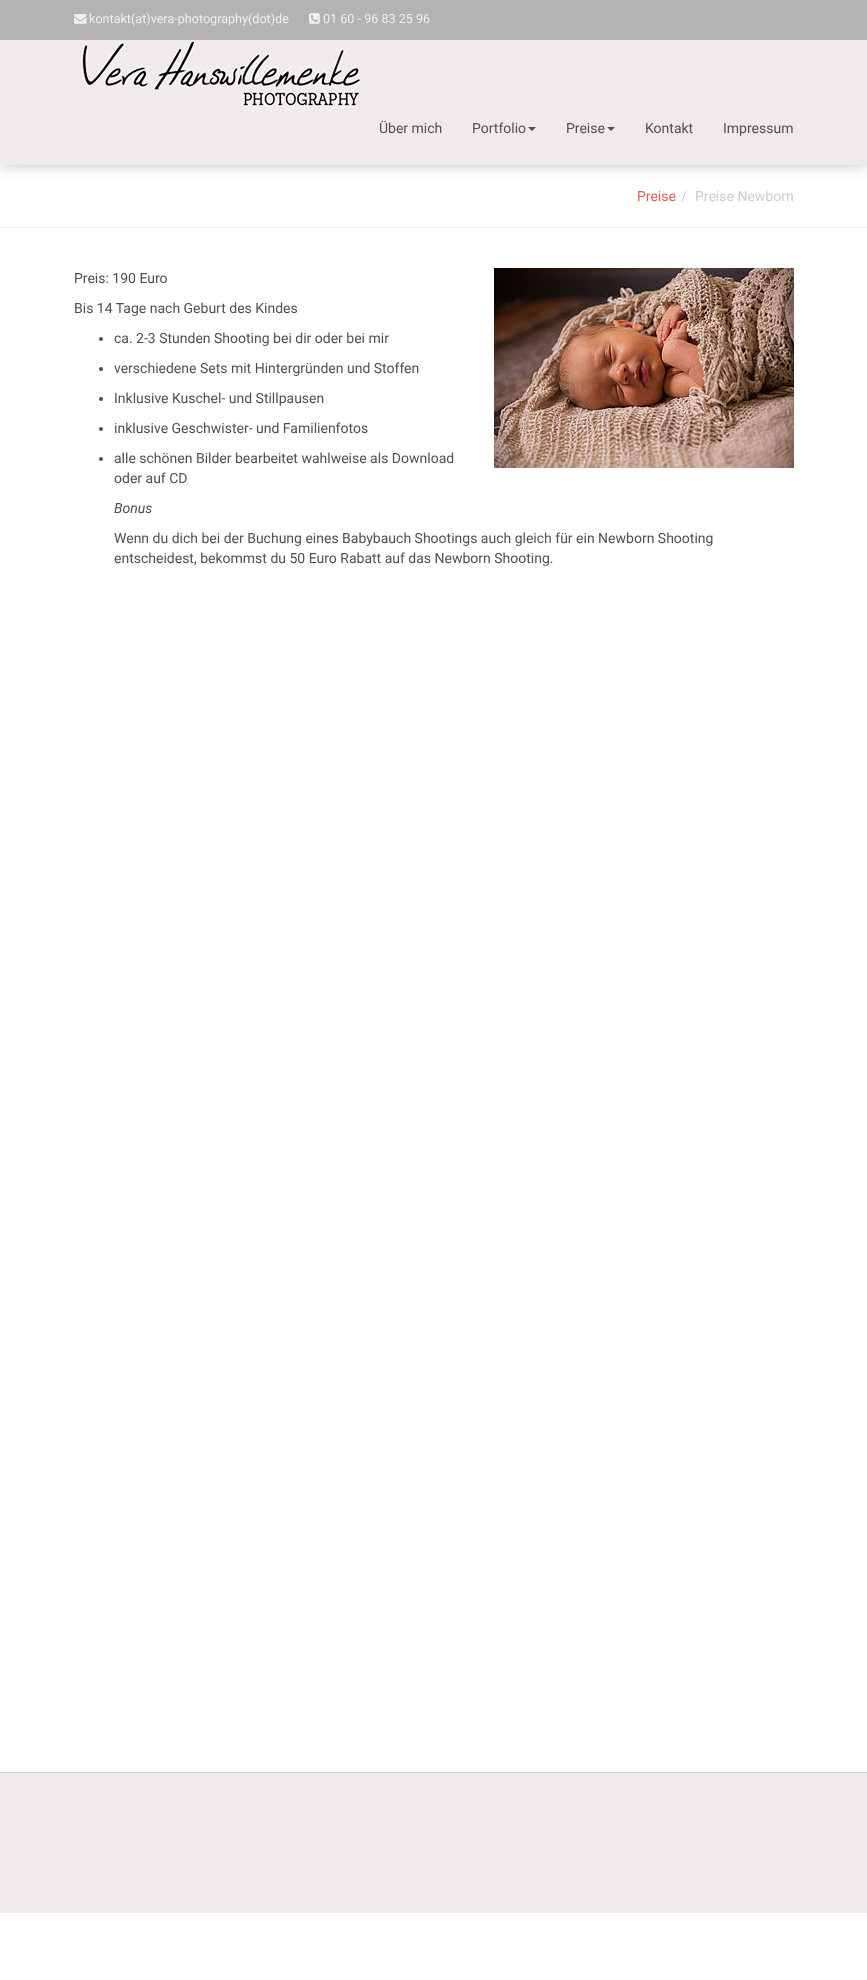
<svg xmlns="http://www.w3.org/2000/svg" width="867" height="1980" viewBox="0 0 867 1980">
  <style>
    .t1 { font: 12.6px Roboto; fill: #ecf0f1; }
    .t2 { font: 14px Roboto; fill: #505050; }
    .t3 { font: 14px Roboto; fill: #e35e54; }
    .t4 { font: 14px Roboto; fill: #ccc; }
    .t5 { font: italic 14px Roboto; fill: #505050; }
  </style>
  <rect width="100%" height="100%" fill="#fff"/>
  <rect x="0" y="40" width="867" height="125" fill="#3232324d" filter="blur(8px)"/>
  <rect x="0" y="0" width="867" height="40" fill="#b3b3b3"/>
  <image x="74" y="14" width="13" height="10" href="images/1.png"/>
  <text x="89" y="23" class="t1">kontakt(at)vera-photography(dot)de</text>
  <image x="309" y="13" width="11" height="11" href="images/2.png"/>
  <text x="323" y="23" class="t1">01 60 - 96 83 25 96</text>
  <rect x="0" y="40" width="867" height="125" fill="#f0eaee"/>
  <image x="81" y="41" width="281" height="69" href="images/3.png"/>
  <text x="379" y="133" class="t2">Über mich</text>
  <text x="472" y="133" class="t2">Portfolio</text>
  <path d="M528 127H536L532 131Z" fill="#505050"/>
  <text x="566" y="133" class="t2">Preise</text>
  <path d="M607 127H615L611 131Z" fill="#505050"/>
  <text x="645" y="133" class="t2">Kontakt</text>
  <text x="723" y="133" class="t2">Impressum</text>
  <rect x="0" y="227" width="867" height="1" fill="#eee"/>
  <text x="637" y="201" class="t3">Preise</text>
  <text x="681" y="201" class="t4">/</text>
  <text x="695" y="201" class="t4">Preise Newborn</text>
  <image x="494" y="268" width="300" height="200" href="images/4.png"/>
  <text x="74" y="283" class="t2">Preis: 190 Euro</text>
  <text x="74" y="313" class="t2">Bis 14 Tage nach Geburt des Kindes</text>
  <circle cx="101" cy="339" r="2" fill="#505050"/>
  <text x="114" y="343" class="t2">ca. 2-3 Stunden Shooting bei dir oder bei mir</text>
  <circle cx="101" cy="369" r="2" fill="#505050"/>
  <text x="114" y="373" class="t2">verschiedene Sets mit Hintergründen und Stoffen</text>
  <circle cx="101" cy="399" r="2" fill="#505050"/>
  <text x="114" y="403" class="t2">Inklusive Kuschel- und Stillpausen</text>
  <circle cx="101" cy="429" r="2" fill="#505050"/>
  <text x="114" y="433" class="t2">inklusive Geschwister- und Familienfotos</text>
  <circle cx="101" cy="459" r="2" fill="#505050"/>
  <text x="114" y="463" class="t2">alle schönen Bilder bearbeitet wahlweise als Download</text>
  <text x="114" y="483" class="t2">oder auf CD</text>
  <text x="114" y="513" class="t5">Bonus</text>
  <text x="114" y="543" class="t2">Wenn du dich bei der Buchung eines Babybauch Shootings auch gleich für ein Newborn Shooting</text>
  <text x="114" y="563" class="t2">entscheidest, bekommst du 50 Euro Rabatt auf das Newborn Shooting.</text>
  <rect x="0" y="1773" width="867" height="140" fill="#f0eaee"/>
  <rect x="0" y="1772" width="867" height="1" fill="#d4d4d4"/>
</svg>
